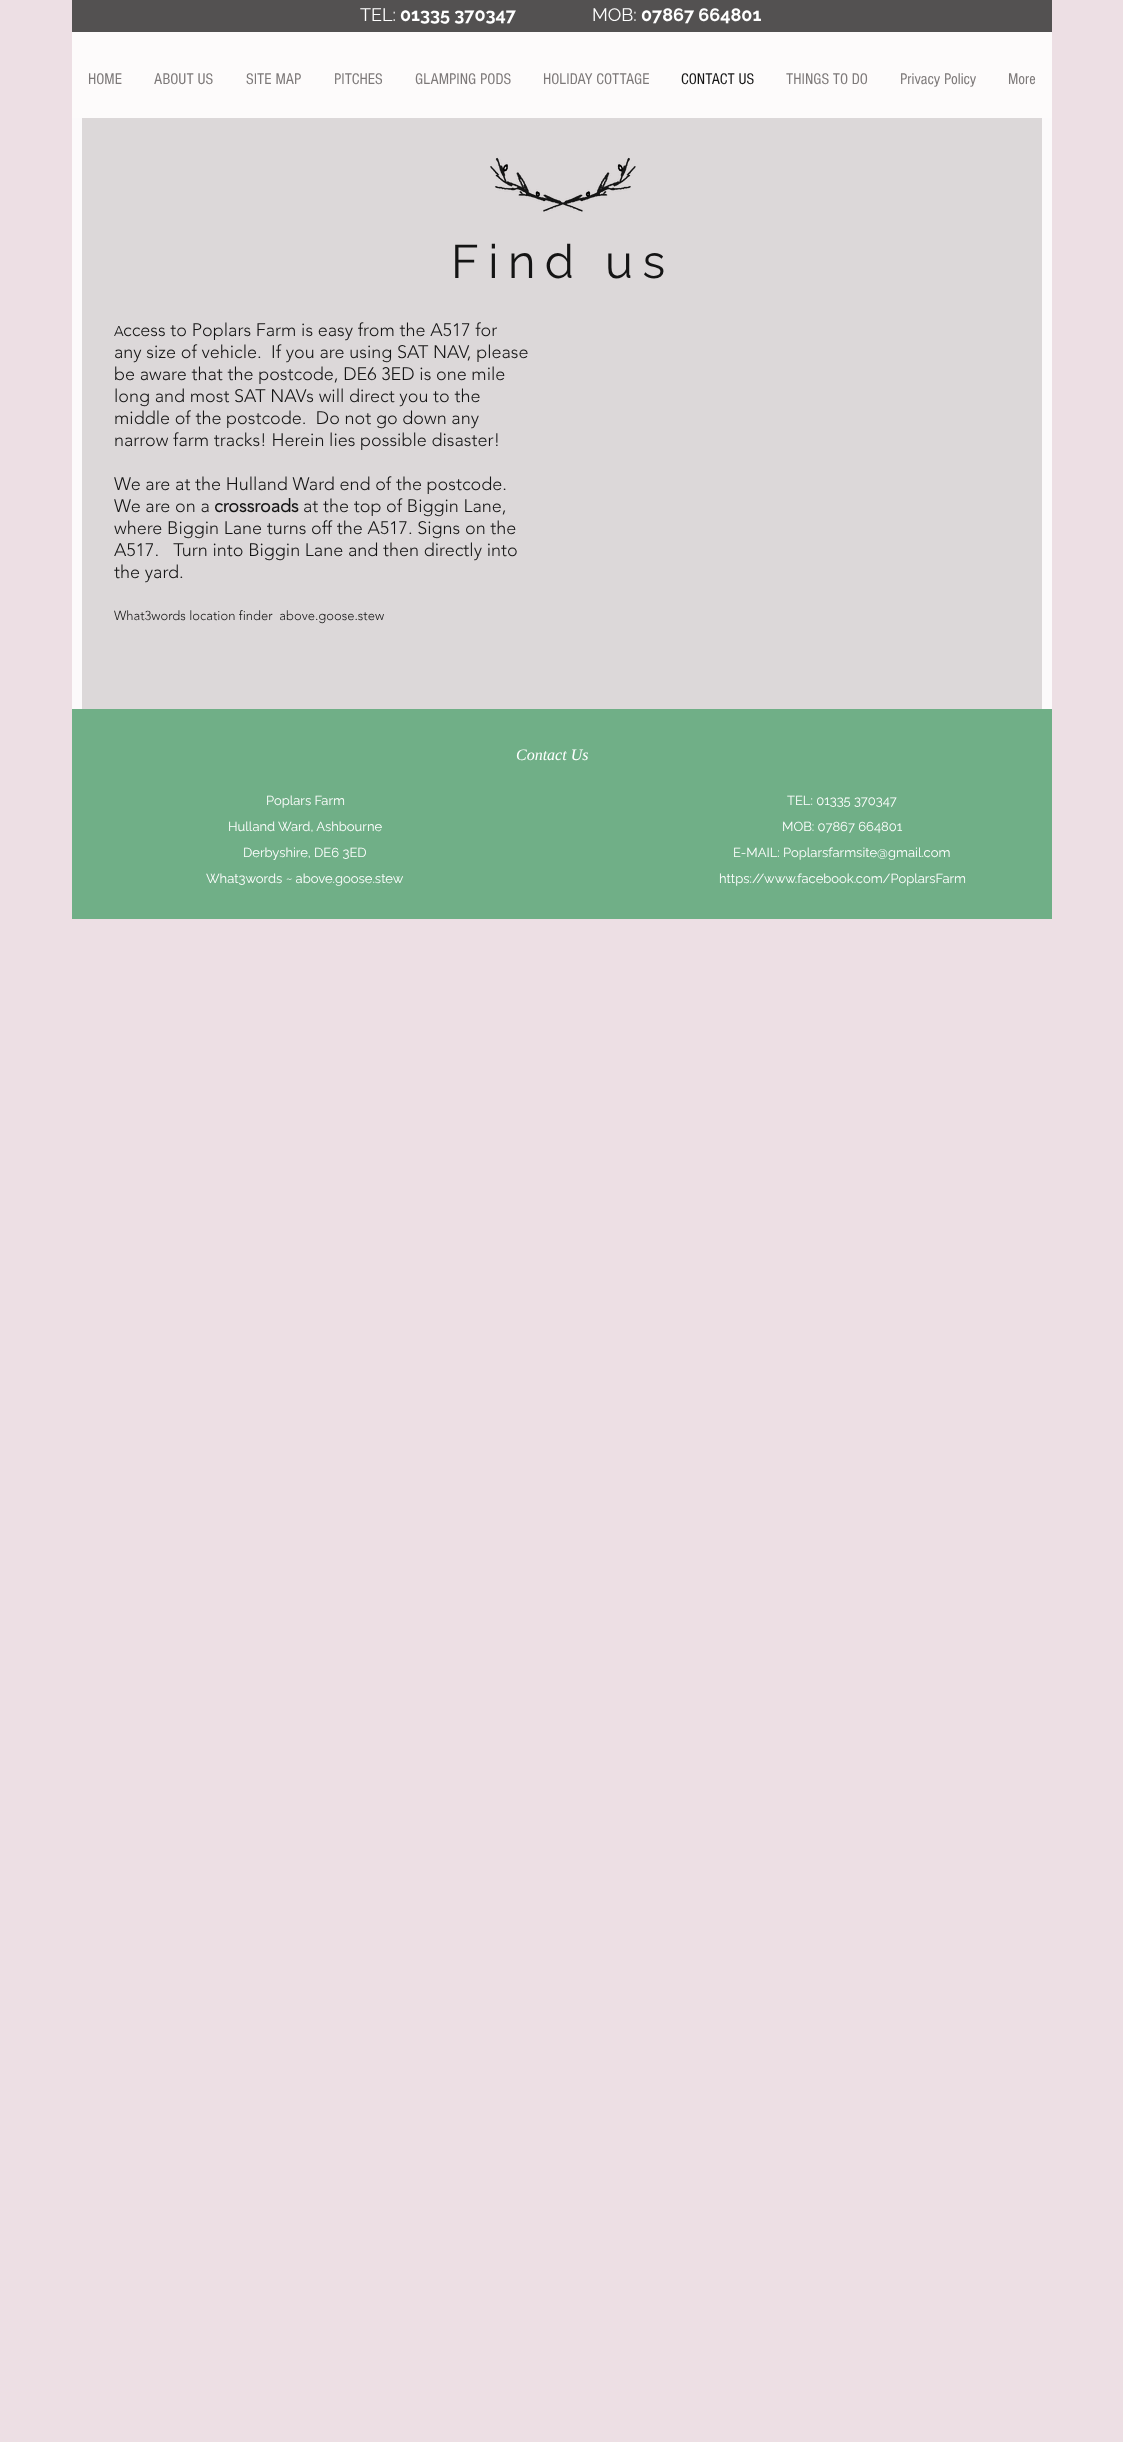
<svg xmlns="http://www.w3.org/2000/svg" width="1123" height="2442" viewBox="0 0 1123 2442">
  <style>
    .t1 { font: 18px Raleway; fill: #fff; }
    .t2 { font: bold 18px Raleway; fill: #fff; }
    .t3 { font: 16px 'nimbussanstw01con'; fill: #7d7979; }
    .t4 { font: 16px 'nimbussanstw01con'; fill: #141414; }
    .t5 { font: 47px Raleway; letter-spacing: 9.5px; fill: #141414; }
    .t6 { font: 300 14px 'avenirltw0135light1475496'; fill: #141414; }
    .t7 { font: 300 18px 'avenirltw0135light1475496'; fill: #141414; }
    .t8 { font: bold 18px 'avenirltw0135light1475496'; fill: #141414; }
    .t9 { font: 300 13px 'avenirltw0135light1475496'; fill: #141414; }
    .t10 { font: italic 16px Liberation Serif; fill: #fff; }
    .t11 { font: 13px Raleway; fill: #fff; }
  </style>
  <rect width="100%" height="100%" fill="#eddfe4"/>
  <rect x="72" y="0" width="980" height="32" fill="#535151"/>
  <text x="360" y="21" class="t1">TEL:</text>
  <text x="400" y="21" class="t2">01335 370347</text>
  <text x="592" y="21" class="t1">MOB:</text>
  <text x="641" y="21" class="t2">07867 664801</text>
  <rect x="72" y="32" width="980" height="86" fill="#fdfbfb"/>
  <text x="88" y="84" class="t3">HOME</text>
  <text x="154" y="84" class="t3">ABOUT US</text>
  <text x="246" y="84" class="t3">SITE MAP</text>
  <text x="334" y="84" class="t3">PITCHES</text>
  <text x="415" y="84" class="t3">GLAMPING PODS</text>
  <text x="543" y="84" class="t3">HOLIDAY COTTAGE</text>
  <text x="681" y="84" class="t4">CONTACT US</text>
  <text x="786" y="84" class="t3">THINGS TO DO</text>
  <text x="900" y="84" class="t3">Privacy Policy</text>
  <text x="1008" y="84" class="t3">More</text>
  <rect x="72" y="118" width="980" height="591" fill="#fcfafb"/>
  <rect x="82" y="118" width="960" height="591" fill="#dcd8d9"/>
  <image x="490" y="157" width="146" height="55" href="images/1.png"/>
  <text x="451" y="278" class="t5">Find us</text>
  <text x="114" y="336" class="t6">A</text>
  <text x="123" y="336" class="t7">ccess to Poplars Farm is easy from the A517 for</text>
  <text x="114" y="358" class="t7" xml:space="preserve">any size of vehicle.  If you are using SAT NAV, please</text>
  <text x="114" y="380" class="t7">be aware that the postcode, DE6 3ED is one mile</text>
  <text x="114" y="402" class="t7">long and most SAT NAVs will direct you to the</text>
  <text x="114" y="424" class="t7" xml:space="preserve">middle of the postcode.  Do not go down any</text>
  <text x="114" y="446" class="t7">narrow farm tracks! Herein lies possible disaster!</text>
  <text x="114" y="490" class="t7">We are at the Hulland Ward end of the postcode.</text>
  <text x="114" y="512" class="t7">We are on a</text>
  <text x="214" y="512" class="t8">crossroads</text>
  <text x="303" y="512" class="t7">at the top of Biggin Lane,</text>
  <text x="114" y="534" class="t7">where Biggin Lane turns off the A517. Signs on the</text>
  <text x="114" y="556" class="t7" xml:space="preserve">A517.   Turn into Biggin Lane and then directly into</text>
  <text x="114" y="578" class="t7">the yard.</text>
  <text x="114" y="620" class="t9" xml:space="preserve">What3words location finder  above.goose.stew</text>
  <rect x="72" y="709" width="980" height="210" fill="#70af87"/>
  <text x="516" y="760" class="t10">Contact Us</text>
  <text x="266" y="805" class="t11">Poplars Farm</text>
  <text x="228" y="831" class="t11">Hulland Ward, Ashbourne</text>
  <text x="243" y="857" class="t11">Derbyshire, DE6 3ED</text>
  <text x="206" y="883" class="t11">What3words ~ above.goose.stew</text>
  <text x="787" y="805" class="t11">TEL: 01335 370347</text>
  <text x="782" y="831" class="t11">MOB: 07867 664801</text>
  <text x="733" y="857" class="t11">E-MAIL: Poplarsfarmsite@gmail.com</text>
  <text x="719" y="883" class="t11">https://www.facebook.com/PoplarsFarm</text>
</svg>
